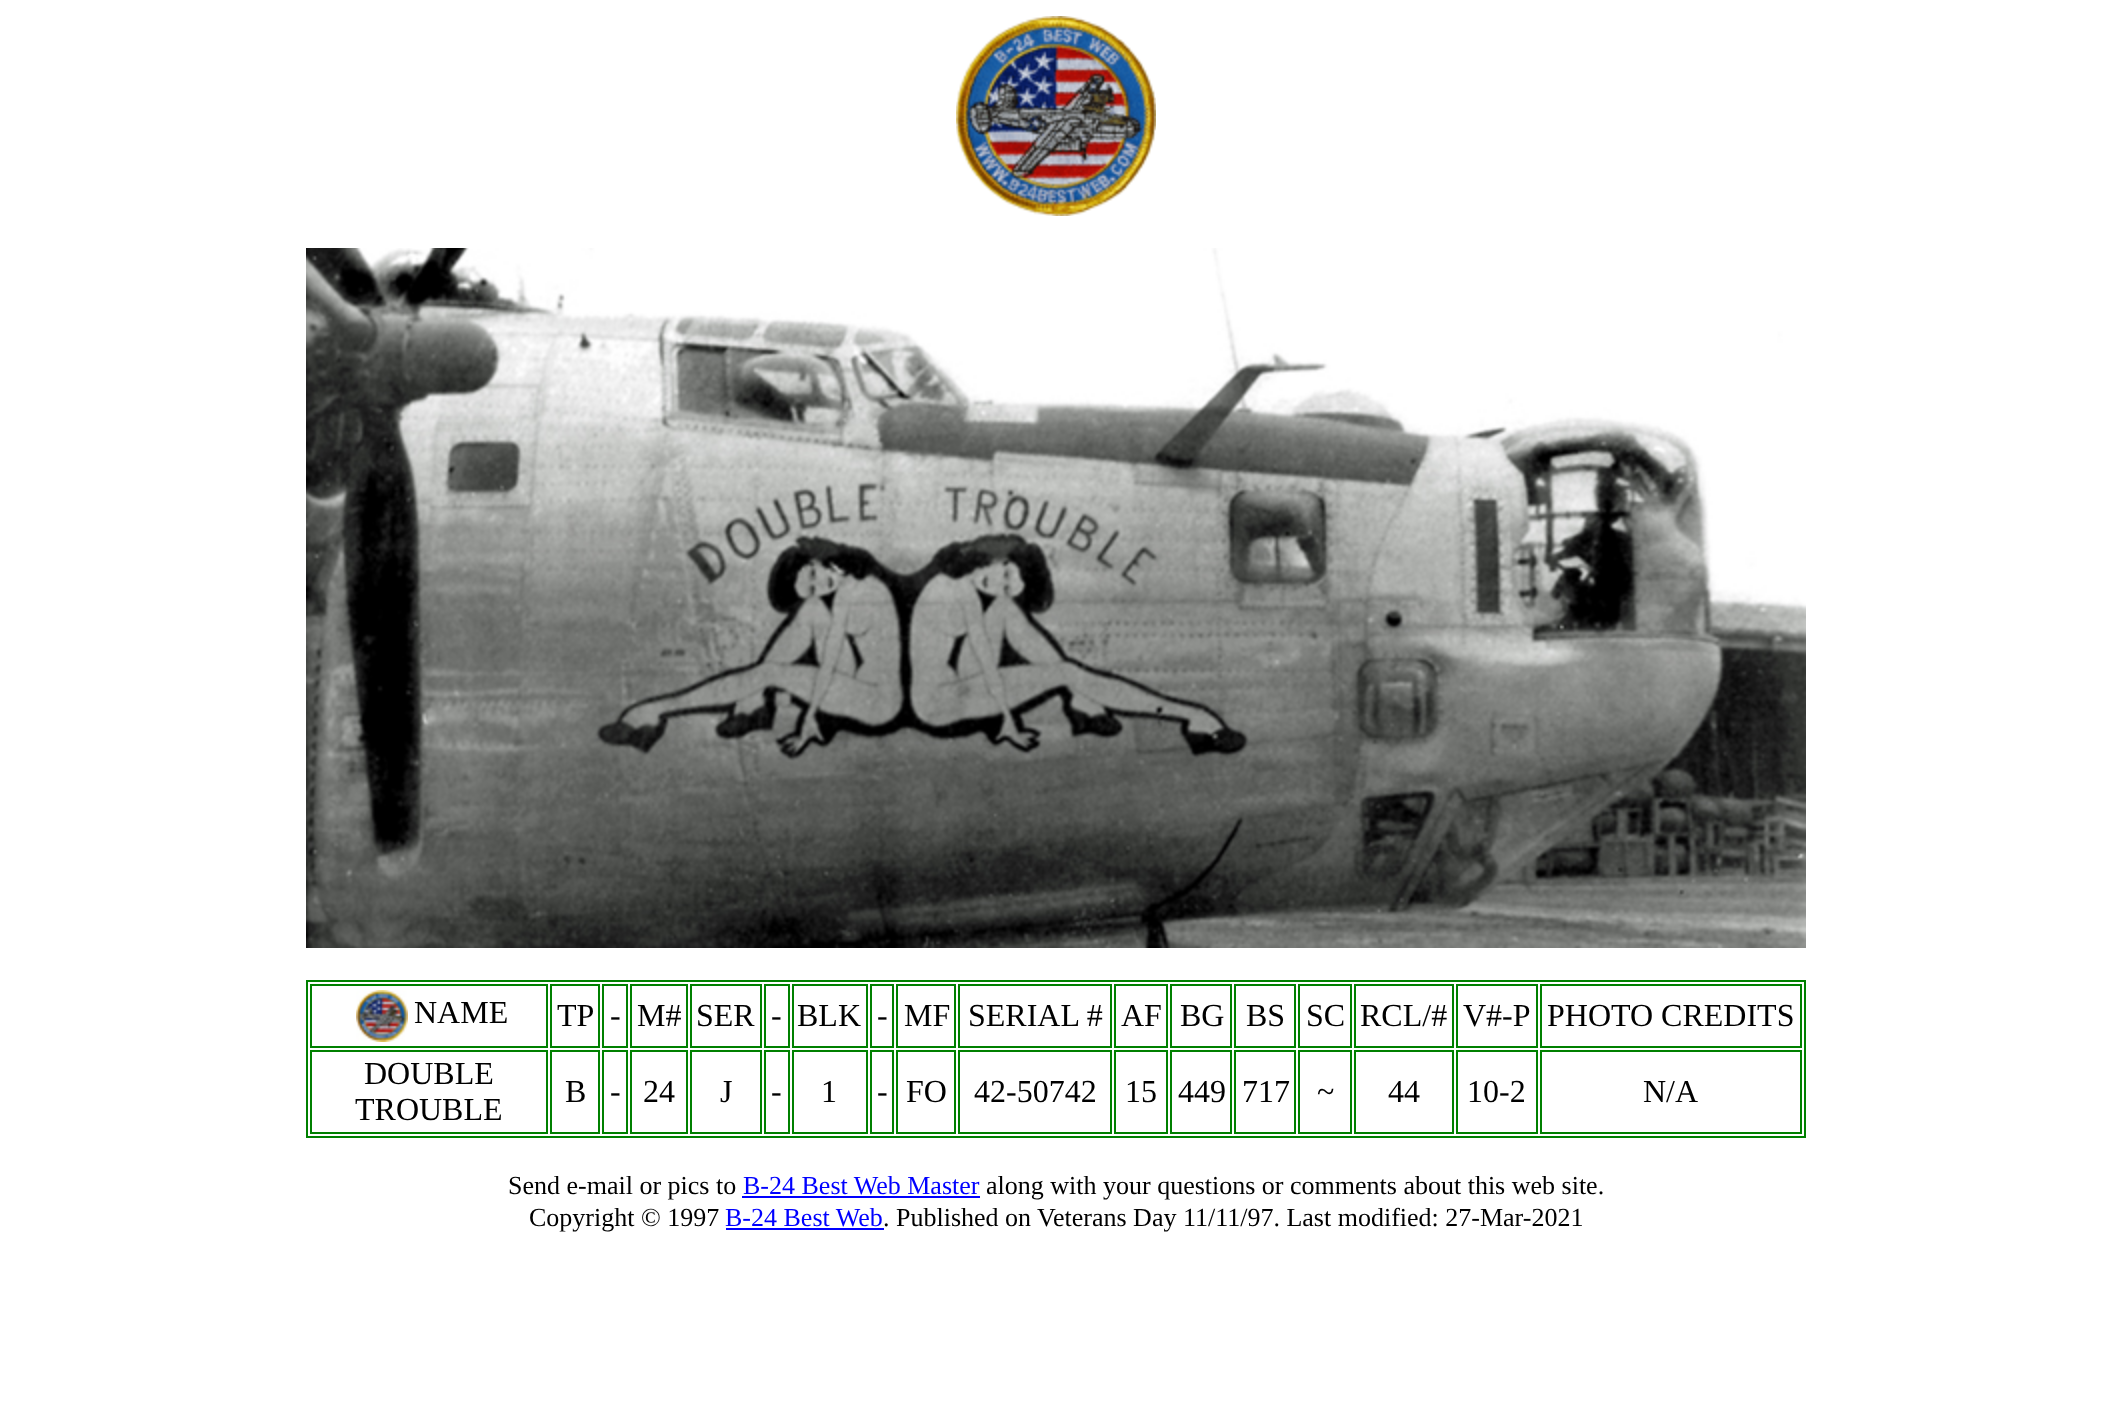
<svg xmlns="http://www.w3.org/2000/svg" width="2111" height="1427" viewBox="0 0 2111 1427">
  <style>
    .t1 { font: 32px Liberation Serif; fill: #000; }
    .t2 { font: 26px Liberation Serif; fill: #000; }
    .t3 { font: 26px Liberation Serif; fill: #00f; }
  </style>
  <rect width="100%" height="100%" fill="#fff"/>
  <image x="956" y="16" width="200" height="200" href="images/1.png"/>
  <image x="306" y="248" width="1500" height="700" href="images/2.png"/>
  <rect x="307" y="981" width="1498" height="156" fill="none" stroke="#008000" stroke-width="2"/>
  <rect x="311" y="985" width="236" height="62" fill="none" stroke="#008000" stroke-width="2"/>
  <image x="356" y="990" width="52" height="52" href="images/3.png"/>
  <text x="414" y="1023" class="t1">NAME</text>
  <rect x="551" y="985" width="48" height="62" fill="none" stroke="#008000" stroke-width="2"/>
  <text x="557" y="1026" class="t1">TP</text>
  <rect x="603" y="985" width="24" height="62" fill="none" stroke="#008000" stroke-width="2"/>
  <text x="610" y="1026" class="t1">-</text>
  <rect x="631" y="985" width="56" height="62" fill="none" stroke="#008000" stroke-width="2"/>
  <text x="637" y="1026" class="t1">M#</text>
  <rect x="691" y="985" width="70" height="62" fill="none" stroke="#008000" stroke-width="2"/>
  <text x="696" y="1026" class="t1">SER</text>
  <rect x="765" y="985" width="24" height="62" fill="none" stroke="#008000" stroke-width="2"/>
  <text x="771" y="1026" class="t1">-</text>
  <rect x="793" y="985" width="74" height="62" fill="none" stroke="#008000" stroke-width="2"/>
  <text x="797" y="1026" class="t1">BLK</text>
  <rect x="871" y="985" width="22" height="62" fill="none" stroke="#008000" stroke-width="2"/>
  <text x="877" y="1026" class="t1">-</text>
  <rect x="897" y="985" width="58" height="62" fill="none" stroke="#008000" stroke-width="2"/>
  <text x="904" y="1026" class="t1">MF</text>
  <rect x="959" y="985" width="152" height="62" fill="none" stroke="#008000" stroke-width="2"/>
  <text x="968" y="1026" class="t1">SERIAL #</text>
  <rect x="1115" y="985" width="52" height="62" fill="none" stroke="#008000" stroke-width="2"/>
  <text x="1121" y="1026" class="t1">AF</text>
  <rect x="1171" y="985" width="60" height="62" fill="none" stroke="#008000" stroke-width="2"/>
  <text x="1180" y="1026" class="t1">BG</text>
  <rect x="1235" y="985" width="60" height="62" fill="none" stroke="#008000" stroke-width="2"/>
  <text x="1246" y="1026" class="t1">BS</text>
  <rect x="1299" y="985" width="52" height="62" fill="none" stroke="#008000" stroke-width="2"/>
  <text x="1306" y="1026" class="t1">SC</text>
  <rect x="1355" y="985" width="98" height="62" fill="none" stroke="#008000" stroke-width="2"/>
  <text x="1360" y="1026" class="t1">RCL/#</text>
  <rect x="1457" y="985" width="80" height="62" fill="none" stroke="#008000" stroke-width="2"/>
  <text x="1463" y="1026" class="t1">V#-P</text>
  <rect x="1541" y="985" width="260" height="62" fill="none" stroke="#008000" stroke-width="2"/>
  <text x="1547" y="1026" class="t1">PHOTO CREDITS</text>
  <rect x="311" y="1051" width="236" height="82" fill="none" stroke="#008000" stroke-width="2"/>
  <text x="364" y="1084" class="t1">DOUBLE</text>
  <text x="355" y="1120" class="t1">TROUBLE</text>
  <rect x="551" y="1051" width="48" height="82" fill="none" stroke="#008000" stroke-width="2"/>
  <text x="565" y="1102" class="t1">B</text>
  <rect x="603" y="1051" width="24" height="82" fill="none" stroke="#008000" stroke-width="2"/>
  <text x="610" y="1102" class="t1">-</text>
  <rect x="631" y="1051" width="56" height="82" fill="none" stroke="#008000" stroke-width="2"/>
  <text x="643" y="1102" class="t1">24</text>
  <rect x="691" y="1051" width="70" height="82" fill="none" stroke="#008000" stroke-width="2"/>
  <text x="720" y="1102" class="t1">J</text>
  <rect x="765" y="1051" width="24" height="82" fill="none" stroke="#008000" stroke-width="2"/>
  <text x="771" y="1102" class="t1">-</text>
  <rect x="793" y="1051" width="74" height="82" fill="none" stroke="#008000" stroke-width="2"/>
  <text x="821" y="1102" class="t1">1</text>
  <rect x="871" y="1051" width="22" height="82" fill="none" stroke="#008000" stroke-width="2"/>
  <text x="877" y="1102" class="t1">-</text>
  <rect x="897" y="1051" width="58" height="82" fill="none" stroke="#008000" stroke-width="2"/>
  <text x="906" y="1102" class="t1">FO</text>
  <rect x="959" y="1051" width="152" height="82" fill="none" stroke="#008000" stroke-width="2"/>
  <text x="974" y="1102" class="t1">42-50742</text>
  <rect x="1115" y="1051" width="52" height="82" fill="none" stroke="#008000" stroke-width="2"/>
  <text x="1125" y="1102" class="t1">15</text>
  <rect x="1171" y="1051" width="60" height="82" fill="none" stroke="#008000" stroke-width="2"/>
  <text x="1178" y="1102" class="t1">449</text>
  <rect x="1235" y="1051" width="60" height="82" fill="none" stroke="#008000" stroke-width="2"/>
  <text x="1242" y="1102" class="t1">717</text>
  <rect x="1299" y="1051" width="52" height="82" fill="none" stroke="#008000" stroke-width="2"/>
  <text x="1317" y="1102" class="t1">~</text>
  <rect x="1355" y="1051" width="98" height="82" fill="none" stroke="#008000" stroke-width="2"/>
  <text x="1388" y="1102" class="t1">44</text>
  <rect x="1457" y="1051" width="80" height="82" fill="none" stroke="#008000" stroke-width="2"/>
  <text x="1467" y="1102" class="t1">10-2</text>
  <rect x="1541" y="1051" width="260" height="82" fill="none" stroke="#008000" stroke-width="2"/>
  <text x="1643" y="1102" class="t1">N/A</text>
  <text x="508" y="1194" class="t2">Send e-mail or pics to</text>
  <text x="743" y="1194" class="t3">B-24 Best Web Master</text>
  <rect x="742" y="1196" width="238" height="2" fill="#00f"/>
  <text x="986" y="1194" class="t2">along with your questions or comments about this web site.</text>
  <text x="529" y="1226" class="t2">Copyright © 1997</text>
  <text x="725" y="1226" class="t3">B-24 Best Web</text>
  <text x="883" y="1226" class="t2">. Published on Veterans Day 11/11/97. Last modified: 27-Mar-2021</text>
  <rect x="726" y="1228" width="158" height="2" fill="#00f"/>
</svg>
